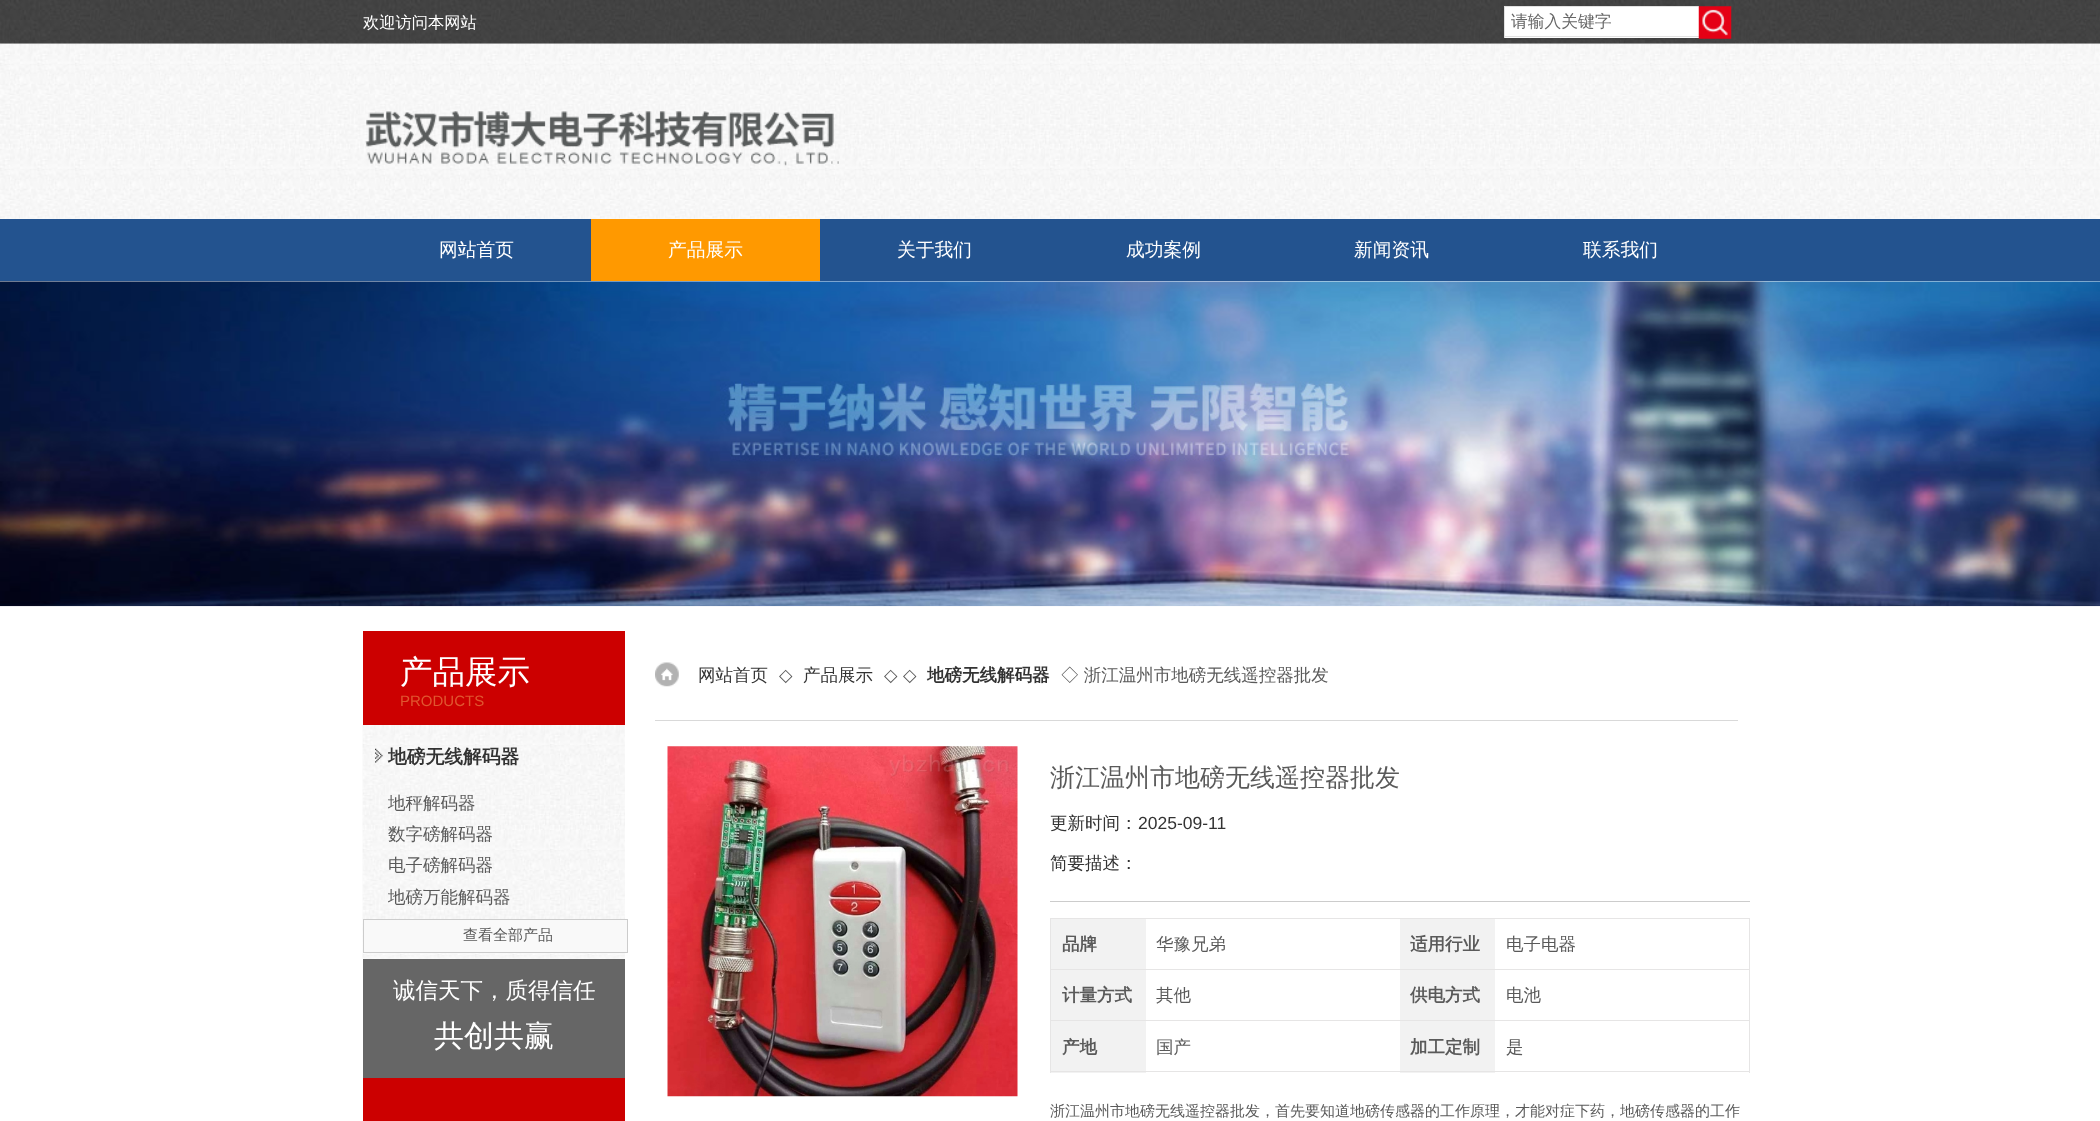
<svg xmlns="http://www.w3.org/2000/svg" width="2100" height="1121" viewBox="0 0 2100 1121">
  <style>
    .t1 { font: 500 16.25px WenQuanYi Zen Hei; fill: #fff; }
    .t2 { font: 500 16.75px WenQuanYi Zen Hei; fill: #666; }
    .t3 { font: 500 18.75px WenQuanYi Zen Hei; fill: #fff; }
    .t4 { font: 500 32.5px WenQuanYi Zen Hei; fill: #fff; }
    .t5 { font: 15px Liberation Sans; fill: #e0562f; }
    .t6 { font: bold 18.75px WenQuanYi Zen Hei; fill: #333; }
    .t7 { font: 500 17.5px WenQuanYi Zen Hei; fill: #5a5a5a; }
    .t8 { font: 500 15px WenQuanYi Zen Hei; fill: #5a5a5a; }
    .t9 { font: 500 22.5px WenQuanYi Zen Hei; fill: #fff; }
    .t10 { font: 500 30px WenQuanYi Zen Hei; fill: #fff; }
    .t11 { font: 500 17.5px WenQuanYi Zen Hei; fill: #333; }
    .t12 { font: 17.5px DejaVu Sans; fill: #5a5a5a; }
    .t13 { font: bold 17.5px WenQuanYi Zen Hei; fill: #333; }
    .t14 { font: 500 25px WenQuanYi Zen Hei; fill: #5a5a5a; }
    .t15 { font: 17.5px Liberation Sans; fill: #333; }
    .t16 { font: bold 17.5px WenQuanYi Zen Hei; fill: #5a5a5a; }
  </style>
  <rect width="100%" height="100%" fill="#fff"/>
  <image x="0" y="0" width="2100" height="44" href="images/1.png"/>
  <text x="363" y="28" class="t1">欢迎访问本网站</text>
  <rect x="1505" y="7" width="194" height="31" fill="#fff"/>
  <rect x="1504" y="6" width="195" height="1" fill="#e1e1e1"/>
  <rect x="1504" y="36" width="195" height="1" fill="#e1e1e1"/>
  <rect x="1504" y="6" width="1" height="32" fill="#e1e1e1"/>
  <text x="1511" y="27" class="t2">请输入关键字</text>
  <image x="1698" y="6" width="34" height="33" href="images/2.png"/>
  <image x="0" y="43" width="2100" height="176" href="images/3.png"/>
  <image x="365" y="111" width="474" height="55" href="images/4.png"/>
  <rect x="0" y="219" width="2100" height="62" fill="#23538f"/>
  <text x="439" y="256" class="t3">网站首页</text>
  <rect x="591" y="219" width="229" height="62" fill="#f90"/>
  <text x="668" y="256" class="t3">产品展示</text>
  <text x="897" y="256" class="t3">关于我们</text>
  <text x="1126" y="256" class="t3">成功案例</text>
  <text x="1354" y="256" class="t3">新闻资讯</text>
  <text x="1583" y="256" class="t3">联系我们</text>
  <image x="0" y="281" width="2100" height="326" href="images/5.png"/>
  <rect x="363" y="631" width="262" height="94" fill="#c00"/>
  <text x="400" y="683" class="t4">产品展示</text>
  <text x="400" y="706" class="t5">PRODUCTS</text>
  <image x="362" y="725" width="263" height="234" href="images/6.png"/>
  <image x="375" y="748" width="8" height="15" href="images/7.png"/>
  <text x="388" y="763" class="t6">地磅无线解码器</text>
  <text x="388" y="809" class="t7">地秤解码器</text>
  <text x="388" y="840" class="t7">数字磅解码器</text>
  <text x="388" y="871" class="t7">电子磅解码器</text>
  <text x="388" y="903" class="t7">地磅万能解码器</text>
  <rect x="363.5" y="919.5" width="264" height="33" fill="#f9f9f9" stroke="#ccc"/>
  <text x="463" y="940" class="t8">查看全部产品</text>
  <rect x="363" y="959" width="262" height="119" fill="#666"/>
  <text x="393" y="998" class="t9">诚信天下，质得信任</text>
  <text x="434" y="1046" class="t10">共创共赢</text>
  <rect x="363" y="1078" width="262" height="43" fill="#c00"/>
  <rect x="655" y="720" width="1083" height="1" fill="#d9d9d9"/>
  <image x="655" y="662" width="24" height="25" href="images/8.png"/>
  <text x="698" y="681" class="t11">网站首页</text>
  <text x="779" y="681" class="t12">◇</text>
  <text x="803" y="681" class="t11">产品展示</text>
  <text x="884" y="681" class="t12">◇</text>
  <text x="903" y="681" class="t12">◇</text>
  <text x="927" y="681" class="t13">地磅无线解码器</text>
  <text x="1061" y="681" class="t7">◇ 浙江温州市地磅无线遥控器批发</text>
  <image x="667" y="746" width="351" height="351" href="images/9.png"/>
  <text x="1050" y="786" class="t14">浙江温州市地磅无线遥控器批发</text>
  <text x="1050" y="829" class="t11">更新时间：</text>
  <text x="1138" y="829" class="t15">2025-09-11</text>
  <text x="1050" y="869" class="t11">简要描述：</text>
  <rect x="1050" y="901" width="700" height="1" fill="#ccc"/>
  <rect x="1050" y="918" width="700" height="1" fill="#e6e5e5"/>
  <rect x="1749" y="918" width="1" height="155" fill="#e6e5e5"/>
  <rect x="1050" y="918" width="1" height="155" fill="#e6e5e5"/>
  <rect x="1051" y="919" width="95" height="50" fill="#f2f2f2"/>
  <text x="1062" y="950" class="t16">品牌</text>
  <text x="1156" y="950" class="t7">华豫兄弟</text>
  <rect x="1400" y="919" width="95" height="50" fill="#f2f2f2"/>
  <text x="1410" y="950" class="t16">适用行业</text>
  <rect x="1050" y="969" width="700" height="1" fill="#e6e5e5"/>
  <text x="1506" y="950" class="t7">电子电器</text>
  <rect x="1051" y="970" width="95" height="50" fill="#f2f2f2"/>
  <text x="1062" y="1001" class="t16">计量方式</text>
  <text x="1156" y="1001" class="t7">其他</text>
  <rect x="1400" y="970" width="95" height="50" fill="#f2f2f2"/>
  <text x="1410" y="1001" class="t16">供电方式</text>
  <rect x="1050" y="1020" width="700" height="1" fill="#e6e5e5"/>
  <text x="1506" y="1001" class="t7">电池</text>
  <rect x="1051" y="1021" width="95" height="52" fill="#f2f2f2"/>
  <text x="1062" y="1053" class="t16">产地</text>
  <text x="1156" y="1053" class="t7">国产</text>
  <rect x="1400" y="1021" width="95" height="52" fill="#f2f2f2"/>
  <text x="1410" y="1053" class="t16">加工定制</text>
  <rect x="1050" y="1071" width="700" height="1" fill="#e6e5e5"/>
  <text x="1506" y="1053" class="t7">是</text>
  <text x="1050" y="1116" class="t8">浙江温州市地磅无线遥控器批发，首先要知道地磅传感器的工作原理，才能对症下药，地磅传感器的工作</text>
</svg>
